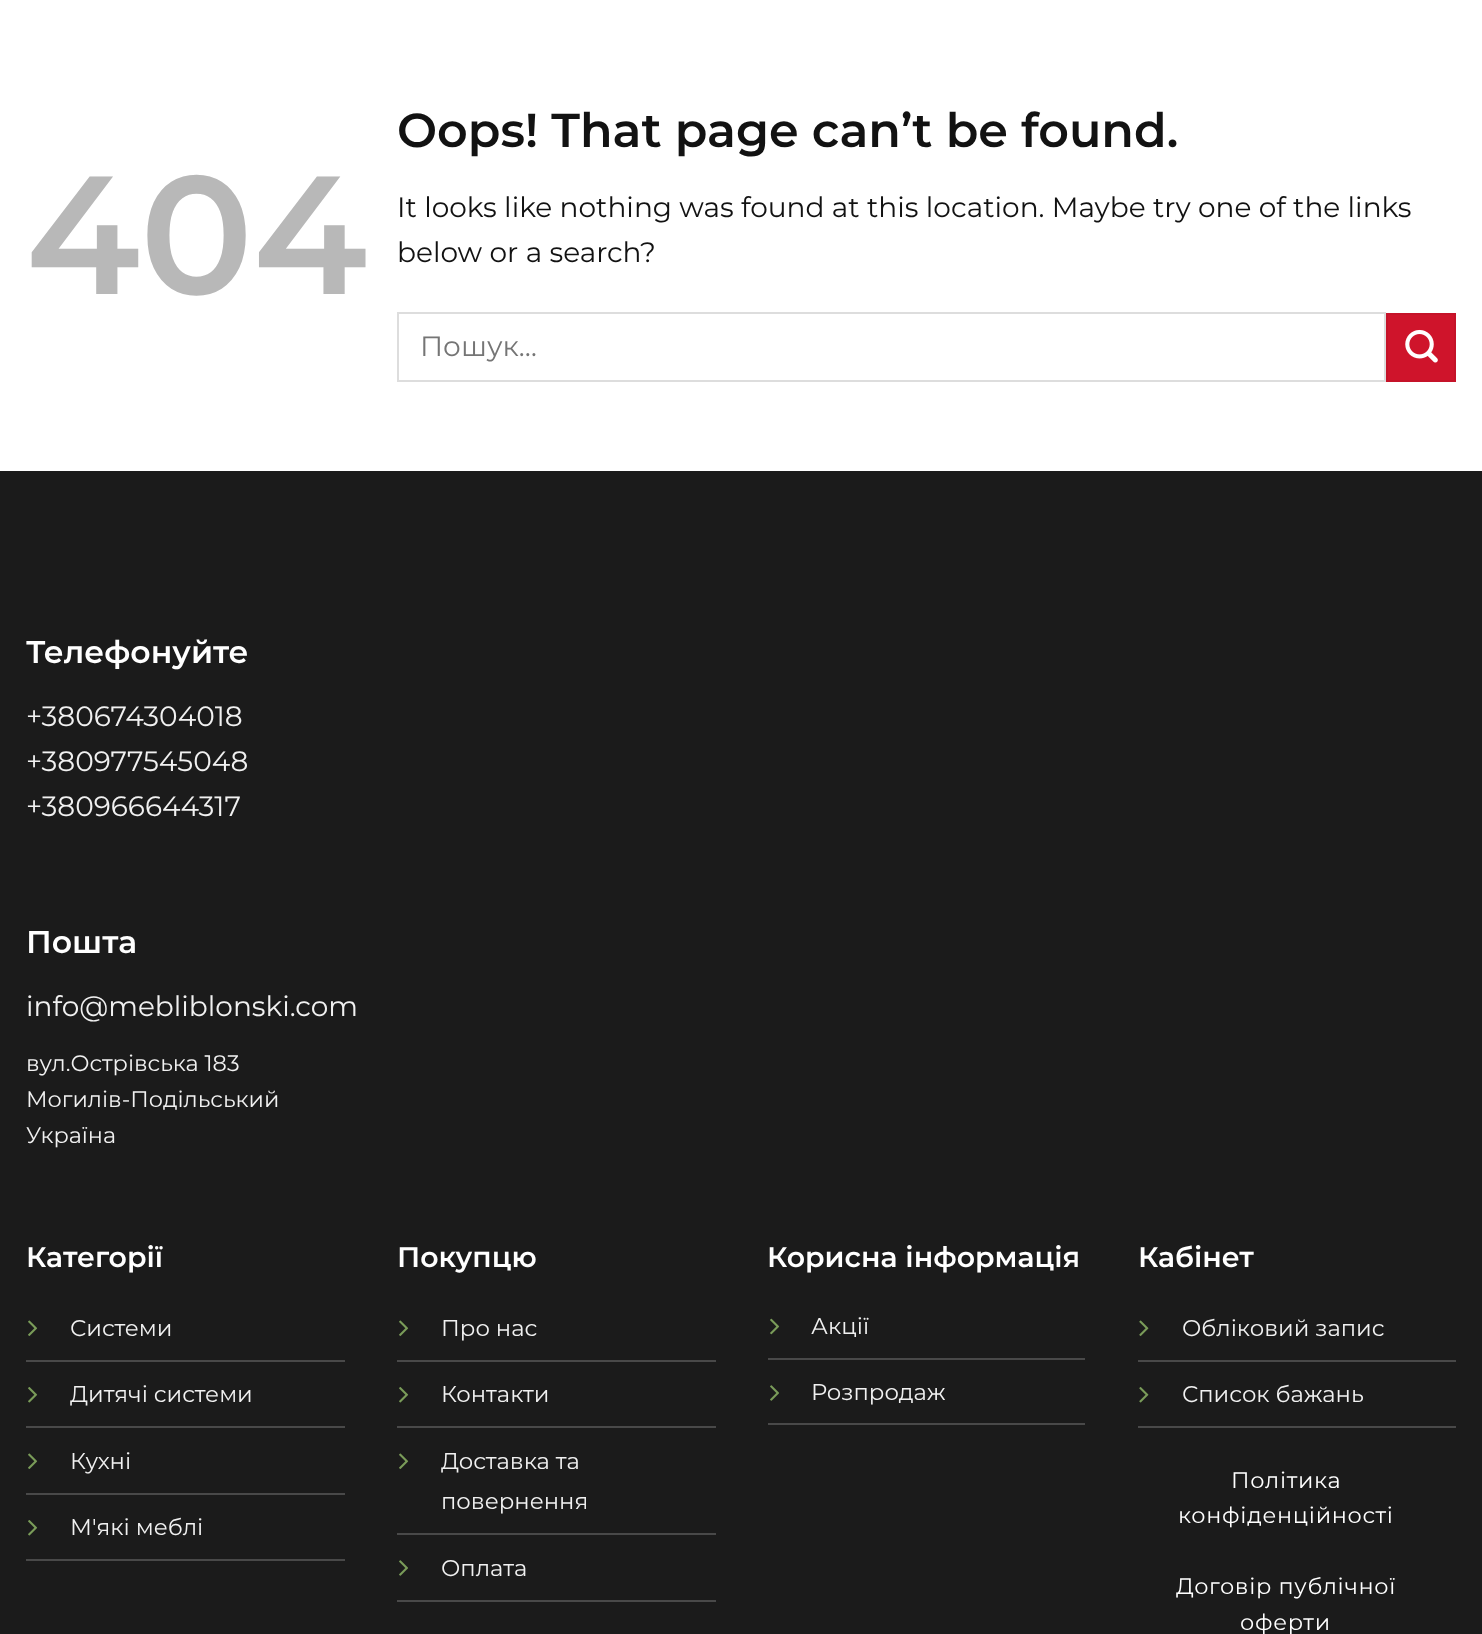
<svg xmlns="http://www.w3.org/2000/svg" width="1482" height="1634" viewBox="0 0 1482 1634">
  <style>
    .t1 { font: 600 168px Montserrat; fill: #b8b8b8; }
    .t2 { font: 600 47.6px Montserrat; fill: #121212; }
    .t3 { font: 28px Montserrat; fill: #121212; }
    .t4 { font: 28px Montserrat; fill: #757575; }
    .t5 { font: 600 31.5px Montserrat; fill: #fff; }
    .t6 { font: 28px Montserrat; fill: #f1f1f1; }
    .t7 { font: 22.4px Montserrat; fill: #f1f1f1; }
    .t8 { font: 600 28.4px Montserrat; fill: #fff; }
    .t9 { font: 22.75px Montserrat; fill: #f1f1f1; }
    .t10 { font: 22.4px Montserrat; letter-spacing: 0.7px; fill: #fff; }
  </style>
  <rect width="100%" height="100%" fill="#fff"/>
  <text x="26" y="294" class="t1">404</text>
  <text x="397" y="147" class="t2">Oops! That page can’t be found.</text>
  <text x="397" y="217" class="t3">It looks like nothing was found at this location. Maybe try one of the links</text>
  <text x="397" y="262" class="t3">below or a search?</text>
  <rect x="398" y="313" width="987" height="68" fill="none" stroke="#ddd" stroke-width="2"/>
  <text x="420" y="356" class="t4">Пошук…</text>
  <rect x="1387" y="314" width="68" height="67" fill="#cf142b" stroke="#c51329" stroke-width="2"/>
  <image x="1405" y="329" width="33" height="34" href="images/1.png"/>
  <rect x="0" y="471" width="1482" height="1163" fill="#1b1b1b"/>
  <text x="26" y="663" class="t5">Телефонуйте</text>
  <text x="26" y="726" class="t6">+380674304018</text>
  <text x="26" y="771" class="t6">+380977545048</text>
  <text x="26" y="816" class="t6">+380966644317</text>
  <text x="26" y="953" class="t5">Пошта</text>
  <text x="26" y="1016" class="t6">info@mebliblonski.com</text>
  <text x="26" y="1071" class="t7">вул.Острівська 183</text>
  <text x="26" y="1107" class="t7">Могилів-Подільський</text>
  <text x="26" y="1143" class="t7">Україна</text>
  <text x="26" y="1267" class="t8">Категорії</text>
  <rect x="26" y="1360" width="319" height="2" fill="#494949"/>
  <image x="28" y="1320" width="10" height="16" href="images/2.png"/>
  <text x="70" y="1336" class="t9">Системи</text>
  <rect x="26" y="1426" width="319" height="2" fill="#494949"/>
  <image x="28" y="1387" width="10" height="16" href="images/3.png"/>
  <text x="70" y="1402" class="t9">Дитячі системи</text>
  <rect x="26" y="1493" width="319" height="2" fill="#494949"/>
  <image x="28" y="1453" width="10" height="16" href="images/2.png"/>
  <text x="70" y="1469" class="t9">Кухні</text>
  <rect x="26" y="1559" width="319" height="2" fill="#494949"/>
  <image x="28" y="1520" width="10" height="16" href="images/3.png"/>
  <text x="70" y="1535" class="t9">М'які меблі</text>
  <text x="397" y="1267" class="t8">Покупцю</text>
  <rect x="397" y="1360" width="319" height="2" fill="#494949"/>
  <image x="399" y="1320" width="10" height="16" href="images/2.png"/>
  <text x="441" y="1336" class="t9">Про нас</text>
  <rect x="397" y="1426" width="319" height="2" fill="#494949"/>
  <image x="399" y="1387" width="10" height="16" href="images/3.png"/>
  <text x="441" y="1402" class="t9">Контакти</text>
  <rect x="397" y="1533" width="319" height="2" fill="#494949"/>
  <image x="399" y="1453" width="10" height="16" href="images/2.png"/>
  <text x="441" y="1469" class="t9">Доставка та</text>
  <text x="441" y="1509" class="t9">повернення</text>
  <rect x="397" y="1600" width="319" height="2" fill="#494949"/>
  <image x="399" y="1560" width="9" height="16" href="images/4.png"/>
  <text x="441" y="1576" class="t9">Оплата</text>
  <text x="767" y="1267" class="t8">Корисна інформація</text>
  <rect x="768" y="1358" width="317" height="2" fill="#494949"/>
  <image x="770" y="1318" width="10" height="17" href="images/5.png"/>
  <text x="811" y="1334" class="t9">Акції</text>
  <rect x="768" y="1423" width="317" height="2" fill="#494949"/>
  <image x="770" y="1385" width="9" height="16" href="images/4.png"/>
  <text x="811" y="1400" class="t9">Розпродаж</text>
  <text x="1138" y="1267" class="t8">Кабінет</text>
  <rect x="1138" y="1360" width="318" height="2" fill="#494949"/>
  <image x="1139" y="1320" width="10" height="16" href="images/6.png"/>
  <text x="1182" y="1336" class="t9">Обліковий запис</text>
  <rect x="1138" y="1426" width="318" height="2" fill="#494949"/>
  <image x="1139" y="1387" width="10" height="16" href="images/7.png"/>
  <text x="1182" y="1402" class="t9">Список бажань</text>
  <text x="1231" y="1488" class="t10">Політика</text>
  <text x="1178" y="1523" class="t10">конфіденційності</text>
  <text x="1176" y="1594" class="t10">Договір публічної</text>
  <text x="1240" y="1630" class="t10">оферти</text>
</svg>
